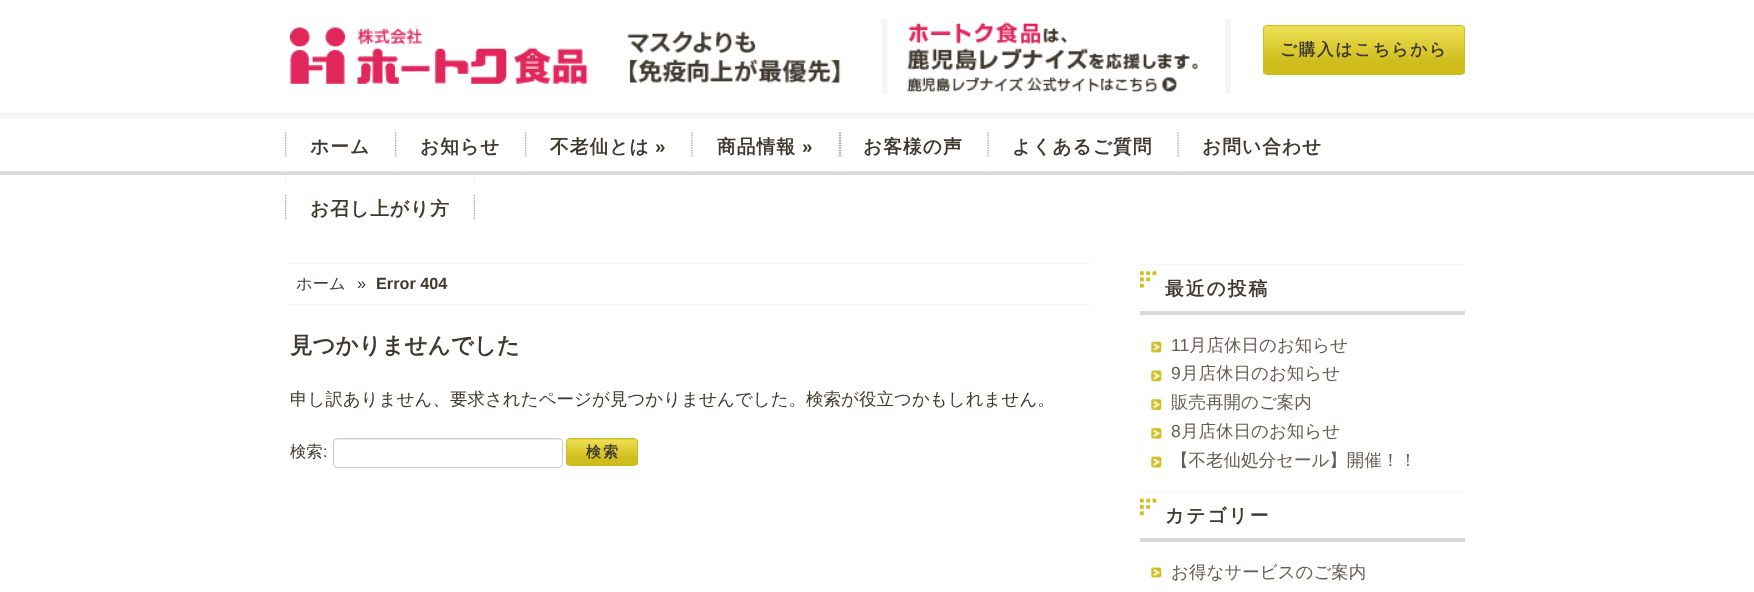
<svg xmlns="http://www.w3.org/2000/svg" width="1754" height="592" viewBox="0 0 1754 592">
  <style>
    .t1 { font: bold 16.6px WenQuanYi Zen Hei; letter-spacing: 1.75px; fill: #403930; }
    .t2 { font: bold 18.75px WenQuanYi Zen Hei; letter-spacing: 1px; fill: #403930; }
    .t3 { font: bold 18.75px Liberation Sans; letter-spacing: 1px; fill: #403930; }
    .t4 { font: 500 16.25px WenQuanYi Zen Hei; fill: #403930; }
    .t5 { font: 16.25px Liberation Sans; fill: #403930; }
    .t6 { font: bold 16.25px Liberation Sans; fill: #403930; }
    .t7 { font: bold 22.5px WenQuanYi Zen Hei; fill: #403930; }
    .t8 { font: 500 17.5px WenQuanYi Zen Hei; fill: #403930; }
    .t9 { font: bold 15px WenQuanYi Zen Hei; letter-spacing: 2px; fill: #403930; }
    .t10 { font: bold 18.75px WenQuanYi Zen Hei; letter-spacing: 2px; fill: #403930; }
    .t11 { font: 17.5px Liberation Sans; fill: #665d52; }
    .t12 { font: 500 17.5px WenQuanYi Zen Hei; fill: #665d52; }
  </style>
  <defs>
    <clipPath id="clip1"><rect x="1263" y="25" width="202" height="50" rx="4"/></clipPath>
    <linearGradient id="g1" gradientUnits="userSpaceOnUse" x1="1364" y1="26" x2="1364" y2="74"><stop offset="0" stop-color="#f0e056"/><stop offset="0.75" stop-color="#cfbd1d"/></linearGradient>
    <clipPath id="clip2"><rect x="566" y="438" width="72" height="28" rx="4"/></clipPath>
    <linearGradient id="g2" gradientUnits="userSpaceOnUse" x1="602" y1="439" x2="602" y2="465"><stop offset="0" stop-color="#f0e056"/><stop offset="0.75" stop-color="#cfbd1d"/></linearGradient>
  </defs>
  <rect width="100%" height="100%" fill="#fff"/>
  <image x="290" y="27" width="551" height="57" href="images/1.png"/>
  <image x="881" y="19" width="350" height="75" href="images/2.png"/>
  <g clip-path="url(#clip1)">
    <rect x="1263" y="26" width="202" height="48" fill="url(#g1)"/>
  </g>
  <rect x="1263.5" y="25.5" width="201" height="49" rx="3.5" fill="none" stroke="#cfbd1d"/>
  <text x="1280" y="55" class="t1">ご購入はこちらから</text>
  <image x="0" y="112" width="1754" height="63" href="images/3.png"/>
  <image x="285" y="132" width="2" height="40" href="images/4.png"/>
  <text x="310" y="153" class="t2">ホーム</text>
  <image x="395" y="132" width="2" height="40" href="images/4.png"/>
  <text x="420" y="153" class="t2">お知らせ</text>
  <image x="525" y="132" width="2" height="40" href="images/4.png"/>
  <text x="550" y="153" class="t2">不老仙とは</text>
  <text x="655" y="153" class="t3">»</text>
  <image x="691" y="132" width="2" height="40" href="images/5.png"/>
  <text x="717" y="153" class="t2">商品情報</text>
  <text x="802" y="153" class="t3">»</text>
  <image x="838" y="132" width="4" height="40" href="images/6.png"/>
  <text x="863" y="153" class="t2">お客様の声</text>
  <image x="987" y="132" width="2" height="40" href="images/7.png"/>
  <text x="1012" y="153" class="t2">よくあるご質問</text>
  <image x="1177" y="132" width="2" height="40" href="images/7.png"/>
  <text x="1202" y="153" class="t2">お問い合わせ</text>
  <image x="473" y="175" width="2" height="44" href="images/8.png"/>
  <image x="285" y="175" width="2" height="44" href="images/9.png"/>
  <text x="310" y="215" class="t2">お召し上がり方</text>
  <rect x="290" y="263" width="800" height="1" fill="#f5f5f5"/>
  <rect x="290" y="304" width="800" height="1" fill="#f5f5f5"/>
  <text x="296" y="289" class="t4">ホーム</text>
  <text x="357" y="289" class="t5">»</text>
  <text x="376" y="289" class="t6">Error 404</text>
  <text x="290" y="353" class="t7">見つかりませんでした</text>
  <text x="290" y="405" class="t8">申し訳ありません、要求されたページが見つかりませんでした。検索が役立つかもしれません。</text>
  <text x="290" y="457" class="t4">検索</text>
  <text x="323" y="457" class="t5">:</text>
  <path d="M336 440H559C560 440 561 441 561 442C561 440 560 439 558 439H336C335 439 334 440 334 442C334 441 335 440 336 440Z" fill="#ececec"/>
  <rect x="333.5" y="438.5" width="229" height="29" rx="3.5" fill="none" stroke="#ccc"/>
  <g clip-path="url(#clip2)">
    <rect x="566" y="439" width="72" height="26" fill="url(#g2)"/>
  </g>
  <path d="M570 440H635L636 442C636 436 625 439 623 439H581C579 439 568 436 568 442C568 441 569 440 570 440Z" fill="#00000012"/>
  <rect x="566.5" y="438.5" width="71" height="27" rx="3.5" fill="none" stroke="#cfbd1d"/>
  <text x="586" y="457" class="t9">検索</text>
  <image x="1140" y="271" width="17" height="17" href="images/10.png"/>
  <rect x="1140" y="264" width="325" height="1" fill="#f5f5f5"/>
  <rect x="1140" y="311" width="325" height="4" fill="#d9d9d9"/>
  <text x="1165" y="295" class="t10">最近の投稿</text>
  <image x="1151" y="341" width="11" height="12" href="images/11.png"/>
  <text x="1171" y="351" class="t11">11</text>
  <text x="1189" y="351" class="t12">月店休日のお知らせ</text>
  <image x="1151" y="370" width="11" height="12" href="images/12.png"/>
  <text x="1171" y="379" class="t11">9</text>
  <text x="1181" y="379" class="t12">月店休日のお知らせ</text>
  <image x="1151" y="399" width="11" height="12" href="images/13.png"/>
  <text x="1171" y="408" class="t12">販売再開のご案内</text>
  <image x="1151" y="427" width="11" height="12" href="images/14.png"/>
  <text x="1171" y="437" class="t11">8</text>
  <text x="1181" y="437" class="t12">月店休日のお知らせ</text>
  <image x="1151" y="456" width="11" height="12" href="images/11.png"/>
  <text x="1171" y="466" class="t12">【不老仙処分セール】開催！！</text>
  <image x="1140" y="498" width="17" height="17" href="images/15.png"/>
  <rect x="1140" y="491" width="325" height="1" fill="#f5f5f5"/>
  <rect x="1140" y="538" width="325" height="4" fill="#d9d9d9"/>
  <text x="1165" y="522" class="t10">カテゴリー</text>
  <image x="1151" y="567" width="11" height="11" href="images/16.png"/>
  <text x="1171" y="578" class="t12">お得なサービスのご案内</text>
</svg>
